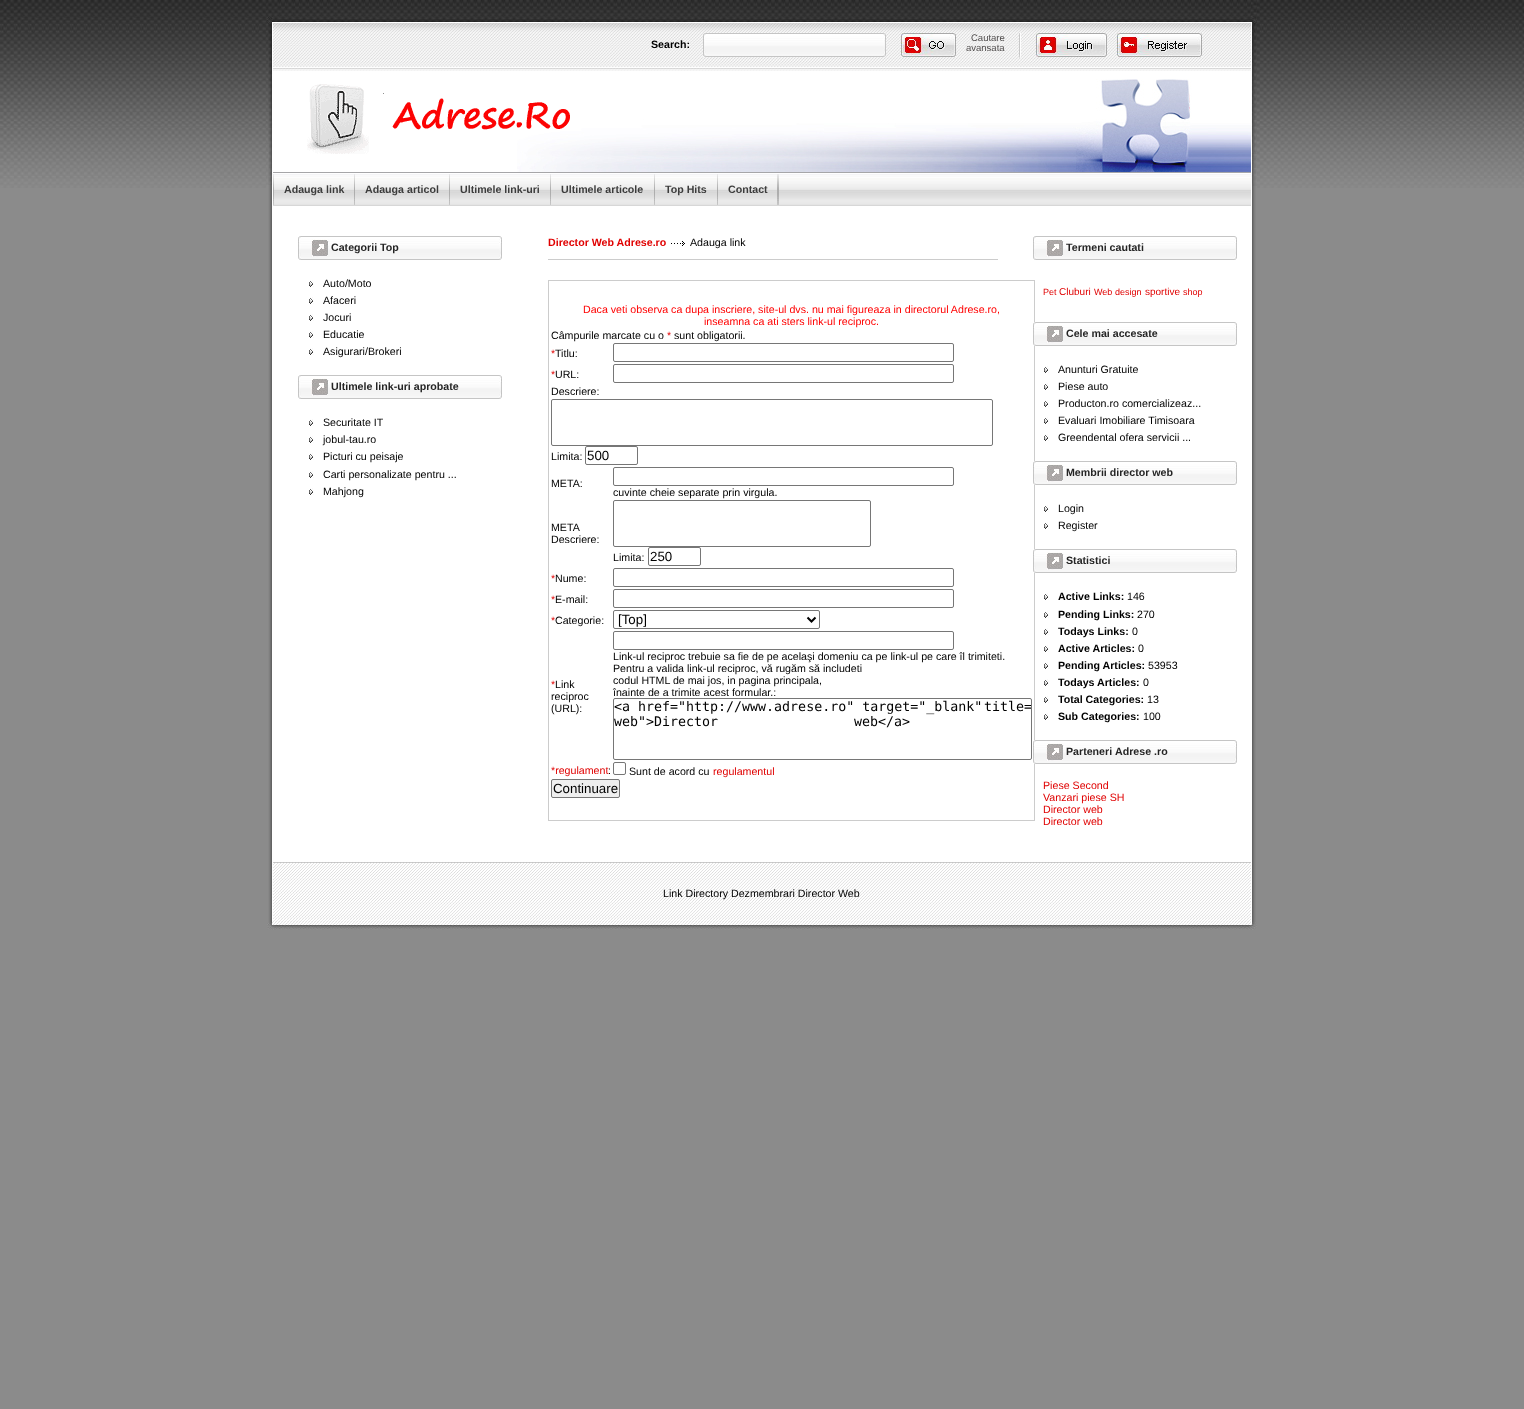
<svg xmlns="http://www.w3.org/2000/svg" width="1524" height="1409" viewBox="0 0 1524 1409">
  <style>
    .t1 { font: bold 10.65px Liberation Sans; fill: #000; }
    .t2 { font: 9.5px Liberation Sans; fill: #514e4e; }
    .t3 { font: bold 10.65px Liberation Sans; fill: #3c3c3c; }
    .t4 { font: bold 10.65px Liberation Sans; fill: #242424; }
    .t5 { font: 10.65px Liberation Sans; fill: #000; }
    .t6 { font: bold 10.65px Liberation Sans; fill: #e00000; }
    .t7 { font: 10.65px Liberation Sans; fill: #f00; }
    .t8 { font: 10.65px Liberation Sans; fill: #e00000; }
    .t9 { font: 13.3px Liberation Sans; fill: #000; }
    .t10 { font: 13.3px DejaVu Sans Mono; fill: #000; }
    .t11 { font: 9px Liberation Sans; fill: #e00000; }
    .t12 { font: 10px Liberation Sans; fill: #e00000; }
  </style>
  <defs>
    <clipPath id="clip1"><rect x="614" y="699" width="417" height="60"/></clipPath>
  </defs>
  <rect width="100%" height="100%" fill="#8b8b8b"/>
  <image x="0" y="0" width="1524" height="188" href="images/1.png"/>
  <image x="267" y="71" width="990" height="851" href="images/2.png"/>
  <image x="267" y="922" width="990" height="8" href="images/3.png"/>
  <image x="273" y="0" width="978" height="23" href="images/4.png"/>
  <image x="267" y="0" width="6" height="185" href="images/5.png"/>
  <image x="1251" y="0" width="6" height="186" href="images/6.png"/>
  <image x="273" y="23" width="978" height="48" href="images/7.png"/>
  <text x="651" y="48" class="t1">Search:</text>
  <image x="703" y="33" width="3" height="24" href="images/8.png"/>
  <image x="706" y="33" width="177" height="24" href="images/9.png"/>
  <image x="883" y="33" width="3" height="24" href="images/10.png"/>
  <image x="901" y="33" width="55" height="24" href="images/11.png"/>
  <text x="971" y="41" class="t2">Cautare</text>
  <text x="966" y="51" class="t2">avansata</text>
  <image x="1019" y="33" width="2" height="25" href="images/12.png"/>
  <image x="1036" y="33" width="71" height="24" href="images/13.png"/>
  <image x="1117" y="33" width="85" height="24" href="images/14.png"/>
  <image x="517" y="79" width="734" height="93" href="images/15.png"/>
  <image x="307" y="84" width="263" height="70" href="images/16.png"/>
  <image x="273" y="172" width="978" height="34" href="images/17.png"/>
  <image x="273" y="174" width="1" height="31" href="images/18.png"/>
  <text x="284" y="193" class="t3">Adauga link</text>
  <image x="354" y="174" width="1" height="31" href="images/18.png"/>
  <text x="365" y="193" class="t3">Adauga articol</text>
  <image x="449" y="174" width="1" height="31" href="images/18.png"/>
  <text x="460" y="193" class="t3">Ultimele link-uri</text>
  <image x="550" y="174" width="1" height="31" href="images/18.png"/>
  <text x="561" y="193" class="t3">Ultimele articole</text>
  <image x="654" y="174" width="1" height="31" href="images/18.png"/>
  <text x="665" y="193" class="t3">Top Hits</text>
  <image x="717" y="174" width="1" height="31" href="images/18.png"/>
  <text x="728" y="193" class="t3">Contact</text>
  <image x="777" y="174" width="1" height="31" href="images/18.png"/>
  <image x="778" y="174" width="1" height="31" href="images/18.png"/>
  <image x="298" y="236" width="3" height="24" href="images/19.png"/>
  <image x="301" y="236" width="198" height="24" href="images/20.png"/>
  <image x="311" y="239" width="18" height="18" href="images/21.png"/>
  <text x="331" y="251" class="t4">Categorii Top</text>
  <image x="499" y="236" width="3" height="24" href="images/22.png"/>
  <image x="309" y="280" width="5" height="7" href="images/23.png"/>
  <text x="323" y="287" class="t5">Auto/Moto</text>
  <image x="309" y="297" width="5" height="7" href="images/23.png"/>
  <text x="323" y="304" class="t5">Afaceri</text>
  <image x="309" y="314" width="5" height="7" href="images/23.png"/>
  <text x="323" y="321" class="t5">Jocuri</text>
  <image x="309" y="331" width="5" height="7" href="images/23.png"/>
  <text x="323" y="338" class="t5">Educatie</text>
  <image x="309" y="348" width="5" height="7" href="images/23.png"/>
  <text x="323" y="355" class="t5">Asigurari/Brokeri</text>
  <image x="298" y="375" width="3" height="24" href="images/19.png"/>
  <image x="301" y="375" width="198" height="24" href="images/20.png"/>
  <image x="311" y="378" width="18" height="18" href="images/21.png"/>
  <text x="331" y="390" class="t4">Ultimele link-uri aprobate</text>
  <image x="499" y="375" width="3" height="24" href="images/22.png"/>
  <image x="309" y="419" width="5" height="7" href="images/23.png"/>
  <text x="323" y="426" class="t5">Securitate IT</text>
  <image x="309" y="436" width="5" height="7" href="images/23.png"/>
  <text x="323" y="443" class="t5">jobul-tau.ro</text>
  <image x="309" y="453" width="5" height="7" href="images/23.png"/>
  <text x="323" y="460" class="t5">Picturi cu peisaje</text>
  <image x="309" y="471" width="5" height="7" href="images/23.png"/>
  <text x="323" y="478" class="t5">Carti personalizate pentru ...</text>
  <image x="309" y="488" width="5" height="7" href="images/23.png"/>
  <text x="323" y="495" class="t5">Mahjong</text>
  <rect x="548" y="259" width="450" height="1" fill="#ccc"/>
  <text x="548" y="246" class="t6">Director Web Adrese.ro</text>
  <image x="671" y="241" width="14" height="5" href="images/24.png"/>
  <text x="690" y="246" class="t5">Adauga link</text>
  <rect x="548.5" y="280.5" width="486" height="540" fill="none" stroke="#ccc"/>
  <text x="583" y="313" class="t7">Daca veti observa ca dupa inscriere, site-ul dvs. nu mai figureaza in directorul Adrese.ro,</text>
  <text x="704" y="325" class="t7">inseamna ca ati sters link-ul reciproc.</text>
  <text x="551" y="339" class="t5">Câmpurile marcate cu o</text>
  <text x="667" y="339" class="t8">*</text>
  <text x="674" y="339" class="t5">sunt obligatorii.</text>
  <text x="551" y="357" class="t8">*</text>
  <text x="555" y="357" class="t5">Titlu:</text>
  <rect x="613.5" y="343.5" width="340" height="18" rx="1.5" fill="none" stroke="#767676"/>
  <text x="551" y="378" class="t8">*</text>
  <text x="555" y="378" class="t5">URL:</text>
  <rect x="613.5" y="364.5" width="340" height="18" rx="1.5" fill="none" stroke="#767676"/>
  <text x="551" y="395" class="t5">Descriere:</text>
  <rect x="551.5" y="399.5" width="441" height="46" rx="1.5" fill="none" stroke="#767676"/>
  <text x="551" y="460" class="t5">Limita:</text>
  <rect x="585.5" y="446.5" width="52" height="18" rx="1.5" fill="none" stroke="#767676"/>
  <text x="587" y="460" class="t9">500</text>
  <text x="551" y="487" class="t5">META:</text>
  <rect x="613.5" y="467.5" width="340" height="18" rx="1.5" fill="none" stroke="#767676"/>
  <text x="613" y="496" class="t5">cuvinte cheie separate prin virgula.</text>
  <text x="551" y="531" class="t5">META</text>
  <text x="551" y="543" class="t5">Descriere:</text>
  <rect x="613.5" y="500.5" width="257" height="46" rx="1.5" fill="none" stroke="#767676"/>
  <text x="613" y="561" class="t5">Limita:</text>
  <rect x="648.5" y="547.5" width="52" height="18" rx="1.5" fill="none" stroke="#767676"/>
  <text x="650" y="561" class="t9">250</text>
  <text x="551" y="582" class="t8">*</text>
  <text x="555" y="582" class="t5">Nume:</text>
  <rect x="613.5" y="568.5" width="340" height="18" rx="1.5" fill="none" stroke="#767676"/>
  <text x="551" y="603" class="t8">*</text>
  <text x="555" y="603" class="t5">E-mail:</text>
  <rect x="613.5" y="589.5" width="340" height="18" rx="1.5" fill="none" stroke="#767676"/>
  <text x="551" y="624" class="t8">*</text>
  <text x="555" y="624" class="t5">Categorie:</text>
  <rect x="613.5" y="610.5" width="206" height="18" rx="1.5" fill="none" stroke="#767676"/>
  <path d="M807.5 617.5L811.5 621.5L815.5 617.5" fill="none" stroke="#000" stroke-width="2"/>
  <text x="618" y="624" class="t9">[Top]</text>
  <text x="551" y="688" class="t8">*</text>
  <text x="555" y="688" class="t5">Link</text>
  <text x="551" y="700" class="t5">reciproc</text>
  <text x="551" y="712" class="t5">(URL):</text>
  <rect x="613.5" y="631.5" width="340" height="18" rx="1.5" fill="none" stroke="#767676"/>
  <text x="613" y="660" class="t5">Link-ul reciproc trebuie sa fie de pe acelaşi domeniu ca pe link-ul pe care îl trimiteti.</text>
  <text x="613" y="672" class="t5">Pentru a valida link-ul reciproc, vă rugăm să includeti</text>
  <text x="613" y="684" class="t5">codul HTML de mai jos, in pagina principala,</text>
  <text x="613" y="696" class="t5">înainte de a trimite acest formular.:</text>
  <rect x="613.5" y="698.5" width="418" height="61" rx="1.5" fill="none" stroke="#767676"/>
  <text x="614" y="711" class="t10">&lt;a href="http://www.adrese.ro" target="_blank"</text>
  <g clip-path="url(#clip1)">
    <text x="984" y="711" class="t10">title=</text>
  </g>
  <text x="614" y="726" word-spacing="128" class="t10">web"&gt;Director web&lt;/a&gt;</text>
  <text x="551" y="774" class="t8">*regulament</text>
  <text x="608" y="774" class="t5">:</text>
  <rect x="613.5" y="762.5" width="12" height="12" rx="1.5" fill="none" stroke="#767676"/>
  <text x="629" y="775" class="t5">Sunt de acord cu</text>
  <text x="713" y="775" class="t8">regulamentul</text>
  <rect x="551.5" y="779.5" width="68" height="18" rx="1.5" fill="#efefef" stroke="#767676"/>
  <text x="553" y="793" class="t9">Continuare</text>
  <image x="1033" y="236" width="3" height="24" href="images/19.png"/>
  <image x="1036" y="236" width="198" height="24" href="images/20.png"/>
  <image x="1046" y="239" width="18" height="18" href="images/21.png"/>
  <text x="1066" y="251" class="t4">Termeni cautati</text>
  <image x="1234" y="236" width="3" height="24" href="images/22.png"/>
  <text x="1043" y="295" class="t11">Pet</text>
  <text x="1059" y="295" class="t12">Cluburi</text>
  <text x="1094" y="295" class="t11">Web</text>
  <text x="1115" y="295" class="t11">design</text>
  <text x="1145" y="295" class="t12">sportive</text>
  <text x="1183" y="295" class="t11">shop</text>
  <image x="1033" y="322" width="3" height="24" href="images/19.png"/>
  <image x="1036" y="322" width="198" height="24" href="images/20.png"/>
  <image x="1046" y="325" width="18" height="18" href="images/21.png"/>
  <text x="1066" y="337" class="t4">Cele mai accesate</text>
  <image x="1234" y="322" width="3" height="24" href="images/22.png"/>
  <image x="1044" y="366" width="5" height="7" href="images/23.png"/>
  <text x="1058" y="373" class="t5">Anunturi Gratuite</text>
  <image x="1044" y="383" width="5" height="7" href="images/23.png"/>
  <text x="1058" y="390" class="t5">Piese auto</text>
  <image x="1044" y="400" width="5" height="7" href="images/23.png"/>
  <text x="1058" y="407" class="t5">Producton.ro comercializeaz...</text>
  <image x="1044" y="417" width="5" height="7" href="images/23.png"/>
  <text x="1058" y="424" class="t5">Evaluari Imobiliare Timisoara</text>
  <image x="1044" y="434" width="5" height="7" href="images/23.png"/>
  <text x="1058" y="441" class="t5">Greendental ofera servicii ...</text>
  <image x="1033" y="461" width="3" height="24" href="images/19.png"/>
  <image x="1036" y="461" width="198" height="24" href="images/20.png"/>
  <image x="1046" y="464" width="18" height="18" href="images/21.png"/>
  <text x="1066" y="476" class="t4">Membrii director web</text>
  <image x="1234" y="461" width="3" height="24" href="images/22.png"/>
  <image x="1044" y="505" width="5" height="7" href="images/23.png"/>
  <text x="1058" y="512" class="t5">Login</text>
  <image x="1044" y="522" width="5" height="7" href="images/23.png"/>
  <text x="1058" y="529" class="t5">Register</text>
  <image x="1033" y="549" width="3" height="24" href="images/19.png"/>
  <image x="1036" y="549" width="198" height="24" href="images/20.png"/>
  <image x="1046" y="552" width="18" height="18" href="images/21.png"/>
  <text x="1066" y="564" class="t4">Statistici</text>
  <image x="1234" y="549" width="3" height="24" href="images/22.png"/>
  <image x="1044" y="593" width="5" height="7" href="images/23.png"/>
  <text x="1058" y="600" class="t1">Active Links:</text>
  <text x="1127" y="600" class="t5">146</text>
  <image x="1044" y="611" width="5" height="7" href="images/23.png"/>
  <text x="1058" y="618" class="t1">Pending Links:</text>
  <text x="1137" y="618" class="t5">270</text>
  <image x="1044" y="628" width="5" height="7" href="images/23.png"/>
  <text x="1058" y="635" class="t1">Todays Links:</text>
  <text x="1132" y="635" class="t5">0</text>
  <image x="1044" y="645" width="5" height="7" href="images/23.png"/>
  <text x="1058" y="652" class="t1">Active Articles:</text>
  <text x="1138" y="652" class="t5">0</text>
  <image x="1044" y="662" width="5" height="7" href="images/23.png"/>
  <text x="1058" y="669" class="t1">Pending Articles:</text>
  <text x="1148" y="669" class="t5">53953</text>
  <image x="1044" y="679" width="5" height="7" href="images/23.png"/>
  <text x="1058" y="686" class="t1">Todays Articles:</text>
  <text x="1143" y="686" class="t5">0</text>
  <image x="1044" y="696" width="5" height="7" href="images/23.png"/>
  <text x="1058" y="703" class="t1">Total Categories:</text>
  <text x="1147" y="703" class="t5">13</text>
  <image x="1044" y="713" width="5" height="7" href="images/23.png"/>
  <text x="1058" y="720" class="t1">Sub Categories:</text>
  <text x="1143" y="720" class="t5">100</text>
  <image x="1033" y="740" width="3" height="24" href="images/19.png"/>
  <image x="1036" y="740" width="198" height="24" href="images/20.png"/>
  <image x="1046" y="743" width="18" height="18" href="images/21.png"/>
  <text x="1066" y="755" class="t4">Parteneri</text>
  <text x="1115" y="755" class="t4">Adrese .ro</text>
  <image x="1234" y="740" width="3" height="24" href="images/22.png"/>
  <text x="1043" y="789" class="t8">Piese Second</text>
  <text x="1043" y="801" class="t8">Vanzari piese SH</text>
  <text x="1043" y="813" class="t8">Director web</text>
  <text x="1043" y="825" class="t8">Director web</text>
  <image x="273" y="862" width="978" height="60" href="images/25.png"/>
  <text x="663" y="897" class="t5">Link Directory Dezmembrari Director Web</text>
</svg>
